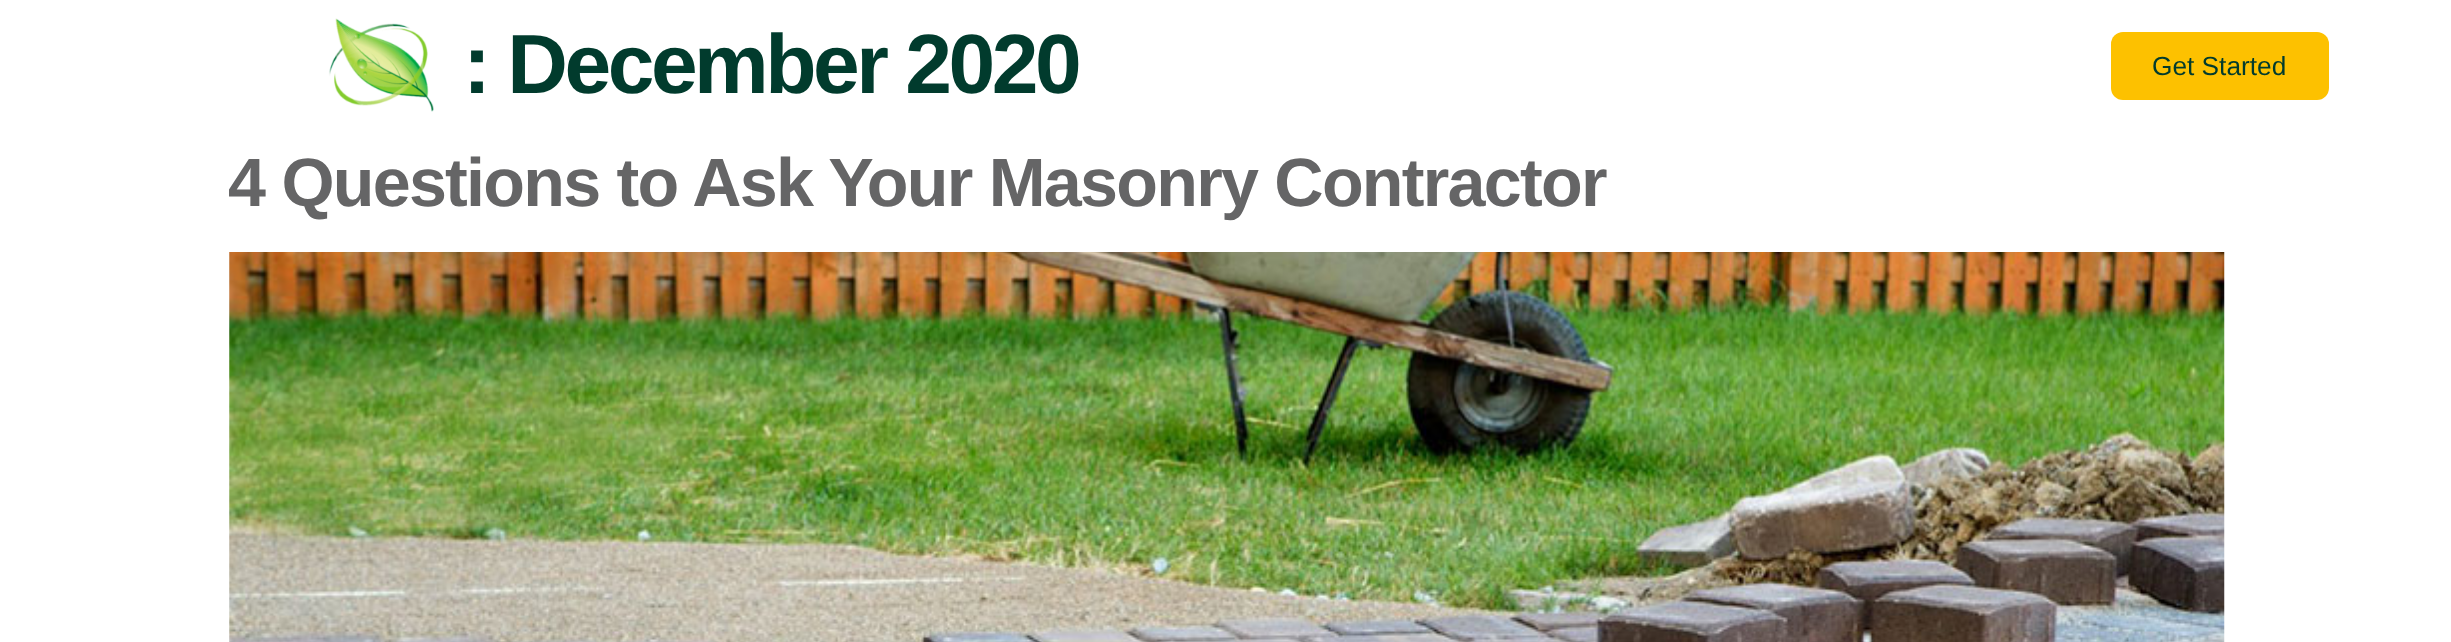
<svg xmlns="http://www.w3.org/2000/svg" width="2451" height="642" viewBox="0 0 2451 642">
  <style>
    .t1 { font: bold 84px Liberation Sans; letter-spacing: -3.5px; fill: #013b2d; }
    .t2 { font: bold 68.25px Liberation Sans; letter-spacing: -1.75px; fill: #656566; }
    .t3 { font: 26.25px Liberation Sans; fill: #013b2d; }
  </style>
  <rect width="100%" height="100%" fill="#fff"/>
  <text x="463" y="93" class="t1">: December 2020</text>
  <text x="228" y="206" class="t2">4 Questions to Ask Your Masonry Contractor</text>
  <image x="229" y="252" width="1996" height="390" href="images/1.png"/>
  <image x="234" y="18" width="200" height="94" href="images/2.png"/>
  <rect x="2111" y="32" width="218" height="68" rx="12" fill="#fdc100"/>
  <text x="2152" y="75" class="t3">Get Started</text>
</svg>
